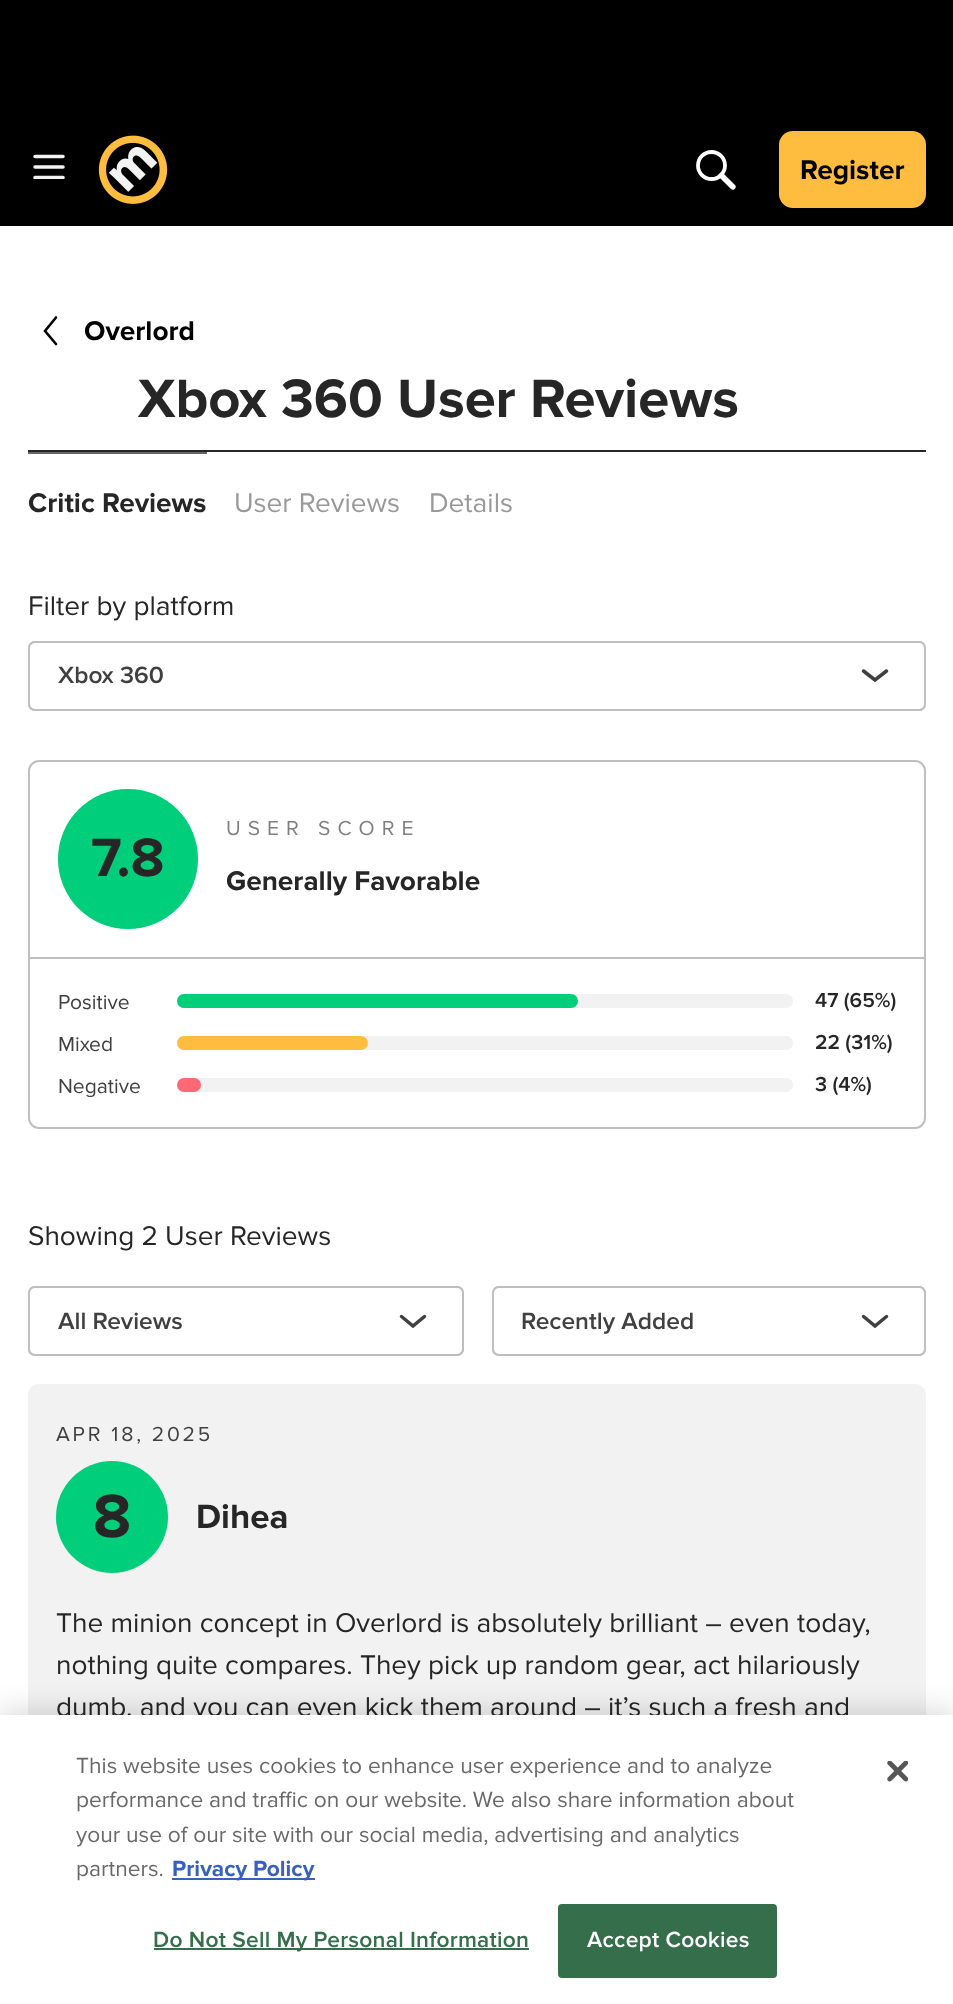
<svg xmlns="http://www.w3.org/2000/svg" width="953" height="2004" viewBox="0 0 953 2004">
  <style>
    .t1 { font: bold 28px Proxima Nova; fill: #000; }
    .t2 { font: bold 56px Proxima Nova; fill: #262626; }
    .t3 { font: bold 28px Proxima Nova; fill: #262626; }
    .t4 { font: 28px Proxima Nova; fill: #999; }
    .t5 { font: 28px Proxima Nova; fill: #262626; }
    .t6 { font: 600 24.5px Proxima Nova; fill: #404040; }
    .t7 { font: 21px Proxima Nova; letter-spacing: 7px; fill: #808080; }
    .t8 { font: 21px Proxima Nova; fill: #404040; }
    .t9 { font: 600 21px Proxima Nova; fill: #262626; }
    .t10 { font: 21px Proxima Nova; letter-spacing: 2.75px; fill: #404040; }
    .t11 { font: bold 63px Proxima Nova; fill: #262626; }
    .t12 { font: bold 35px Proxima Nova; fill: #262626; }
    .t13 { font: 22.75px Proxima Nova; fill: #696969; }
    .t14 { font: bold 22.75px Proxima Nova; fill: #3860be; }
    .t15 { font: 600 22.75px Proxima Nova; letter-spacing: 0.25px; fill: #346e4a; }
    .t16 { font: 600 22.75px Proxima Nova; letter-spacing: 0.25px; fill: #fff; }
  </style>
  <defs>
    <clipPath id="clip1"><rect x="33" y="154" width="32" height="25"/></clipPath>
  </defs>
  <rect width="100%" height="100%" fill="#fff"/>
  <rect x="0" y="0" width="953" height="226" fill="#000"/>
  <g clip-path="url(#clip1)">
    <path d="M35 156.5H63M35 167H63M35 177.5H63" fill="none" stroke="#f2f2f2" stroke-width="3.5" stroke-linecap="round"/>
  </g>
  <image x="98" y="135" width="70" height="69" href="images/1.png"/>
  <circle cx="711.5" cy="165.5" r="13.5" fill="none" stroke="#fff" stroke-width="3.8"/>
  <path d="M731 189C733.5 191.5 737.5 187.5 735 185ZM717.5 175.5L731 189L735 185L721.5 171.5Z" fill="#fff"/>
  <rect x="779" y="131" width="147" height="77" rx="14" fill="#ffbd3f"/>
  <text x="800" y="179" class="t1">Register</text>
  <path d="M56 317.5L45 331L56 344" fill="none" stroke="#000" stroke-width="2.6" stroke-linecap="round"/>
  <text x="84" y="340" class="t1">Overlord</text>
  <text x="138" y="417" class="t2">Xbox 360 User Reviews</text>
  <rect x="28" y="450" width="898" height="2" fill="#262626"/>
  <rect x="28" y="452" width="179" height="2" fill="#666"/>
  <text x="28" y="512" class="t3">Critic Reviews</text>
  <text x="234" y="512" class="t4">User Reviews</text>
  <text x="429" y="512" class="t4">Details</text>
  <text x="28" y="615" class="t5">Filter by platform</text>
  <rect x="29" y="642" width="896" height="68" rx="6" fill="none" stroke="#bfbfbf" stroke-width="2"/>
  <rect x="29" y="642" width="896" height="68" rx="6" fill="#fff" stroke="#bfbfbf" stroke-width="2"/>
  <text x="58" y="683" class="t6">Xbox 360</text>
  <path d="M863.5 671L875 680L886.5 671" fill="none" stroke="#404040" stroke-width="3.5" stroke-linecap="round"/>
  <rect x="29" y="761" width="896" height="367" rx="10" fill="none" stroke="#bfbfbf" stroke-width="2"/>
  <circle cx="128" cy="859" r="70" fill="#00ce7a"/>
  <text x="91" y="876" class="t2">7.8</text>
  <text x="226" y="835" class="t7">USER SCORE</text>
  <text x="226" y="890" class="t3">Generally Favorable</text>
  <rect x="30" y="957" width="894" height="2" fill="#bfbfbf"/>
  <text x="58" y="1009" class="t8">Positive</text>
  <rect x="177" y="994" width="616" height="14" rx="7" fill="#f2f2f2"/>
  <rect x="177" y="994" width="401" height="14" rx="7" fill="#00ce7a"/>
  <text x="815" y="1007" class="t9">47 (65%)</text>
  <text x="58" y="1051" class="t8">Mixed</text>
  <rect x="177" y="1036" width="616" height="14" rx="7" fill="#f2f2f2"/>
  <rect x="177" y="1036" width="191" height="14" rx="7" fill="#ffbd3f"/>
  <text x="815" y="1049" class="t9">22 (31%)</text>
  <text x="58" y="1093" class="t8">Negative</text>
  <rect x="177" y="1078" width="616" height="14" rx="7" fill="#f2f2f2"/>
  <rect x="177" y="1078" width="24" height="14" rx="7" fill="#ff6874"/>
  <text x="815" y="1091" class="t9">3 (4%)</text>
  <text x="28" y="1245" class="t5">Showing 2 User Reviews</text>
  <rect x="29" y="1287" width="434" height="68" rx="6" fill="none" stroke="#bfbfbf" stroke-width="2"/>
  <rect x="29" y="1287" width="434" height="68" rx="6" fill="#fff" stroke="#bfbfbf" stroke-width="2"/>
  <text x="58" y="1329" class="t6">All Reviews</text>
  <path d="M401.5 1316.5L413 1326L424.5 1316.5" fill="none" stroke="#404040" stroke-width="3.5" stroke-linecap="round"/>
  <rect x="493" y="1287" width="432" height="68" rx="6" fill="none" stroke="#bfbfbf" stroke-width="2"/>
  <rect x="493" y="1287" width="432" height="68" rx="6" fill="#fff" stroke="#bfbfbf" stroke-width="2"/>
  <text x="521" y="1329" class="t6">Recently Added</text>
  <path d="M863.5 1316.5L875 1326L886.5 1316.5" fill="none" stroke="#404040" stroke-width="3.5" stroke-linecap="round"/>
  <rect x="28" y="1384" width="898" height="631" rx="11" fill="#f2f2f2"/>
  <text x="56" y="1441" class="t10">APR 18, 2025</text>
  <circle cx="112" cy="1517" r="56" fill="#00ce7a"/>
  <text x="93" y="1537" class="t11">8</text>
  <text x="196" y="1528" class="t12">Dihea</text>
  <text x="56" y="1632" class="t5">The minion concept in Overlord is absolutely brilliant – even today,</text>
  <text x="56" y="1674" class="t5">nothing quite compares. They pick up random gear, act hilariously</text>
  <text x="56" y="1716" class="t5">dumb, and you can even kick them around – it’s such a fresh and</text>
  <rect x="0" y="1715" width="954" height="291" fill="#00000033" filter="blur(16px)"/>
  <rect x="0" y="1715" width="953" height="289" fill="#fff"/>
  <text x="76" y="1773" class="t13">This website uses cookies to enhance user experience and to analyze</text>
  <text x="76" y="1807" class="t13">performance and traffic on our website. We also share information about</text>
  <text x="76" y="1842" class="t13">your use of our site with our social media, advertising and analytics</text>
  <text x="76" y="1876" class="t13">partners.</text>
  <rect x="172" y="1878" width="143" height="2" fill="#3860be"/>
  <text x="172" y="1876" class="t14">Privacy Policy</text>
  <rect x="154" y="1948" width="375" height="2" fill="#346e4a"/>
  <text x="153" y="1947" class="t15">Do Not Sell My Personal Information</text>
  <rect x="559" y="1905" width="217" height="72" rx="3" fill="#346e4a" stroke="#346e4a" stroke-width="2"/>
  <text x="587" y="1947" class="t16">Accept Cookies</text>
  <image x="887" y="1761" width="21" height="21" href="images/2.png"/>
</svg>
